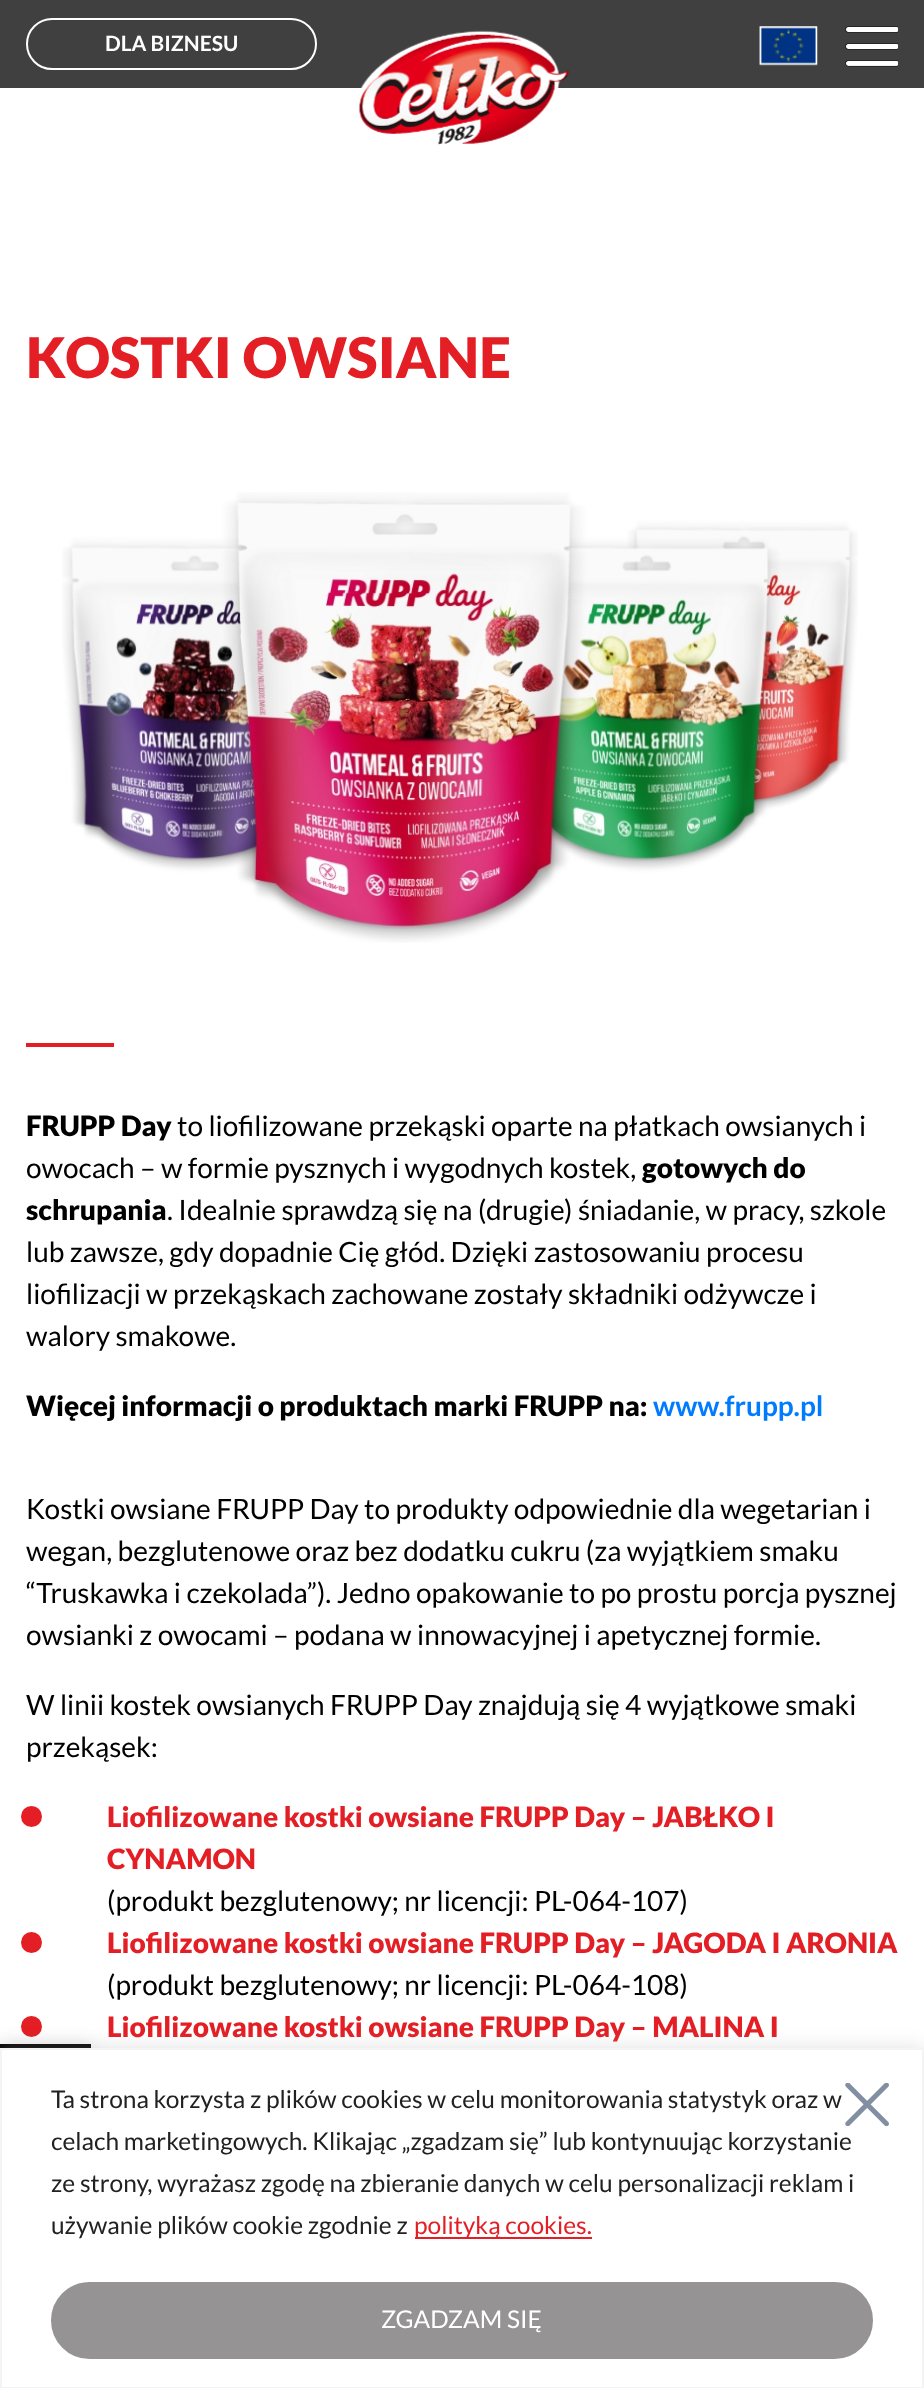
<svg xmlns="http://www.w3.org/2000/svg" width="924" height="2388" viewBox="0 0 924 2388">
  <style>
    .t1 { font: bold 21px Lato; fill: #fff; }
    .t2 { font: 900 56px Lato; fill: #e31e24; }
    .t3 { font: 900 28px Lato; fill: #000; }
    .t4 { font: 28px Lato; fill: #000; }
    .t5 { font: bold 28px Lato; fill: #007bff; }
    .t6 { font: 900 28px Lato; fill: #e31e24; }
    .t7 { font: 24.5px Lato; fill: #212121; }
    .t8 { font: 24.5px Lato; fill: #e31e24; }
    .t9 { font: 24.5px Lato; fill: #fff; }
  </style>
  <rect width="100%" height="100%" fill="#fff"/>
  <rect x="0" y="0" width="924" height="88" fill="#404040"/>
  <rect x="27" y="19" width="289" height="50" rx="25" fill="none" stroke="#fff" stroke-width="2"/>
  <text x="105" y="51" class="t1">DLA BIZNESU</text>
  <image x="359" y="30" width="211" height="115" href="images/1.png"/>
  <image x="759" y="26" width="59" height="40" href="images/2.png"/>
  <image x="845" y="26" width="53" height="41" href="images/3.png"/>
  <text x="26" y="378" class="t2">KOSTKI OWSIANE</text>
  <image x="62" y="492" width="796" height="451" href="images/4.png"/>
  <rect x="26" y="1043" width="88" height="4" fill="#e31e24"/>
  <text x="26" y="1136" class="t3">FRUPP Day</text>
  <text x="177" y="1136" class="t4">to liofilizowane przekąski oparte na płatkach owsianych i</text>
  <text x="26" y="1178" class="t4">owocach – w formie pysznych i wygodnych kostek,</text>
  <text x="642" y="1178" class="t3">gotowych do</text>
  <text x="26" y="1220" class="t3">schrupania</text>
  <text x="167" y="1220" class="t4">. Idealnie sprawdzą się na (drugie) śniadanie, w pracy, szkole</text>
  <text x="26" y="1262" class="t4">lub zawsze, gdy dopadnie Cię głód. Dzięki zastosowaniu procesu</text>
  <text x="26" y="1304" class="t4">liofilizacji w przekąskach zachowane zostały składniki odżywcze i</text>
  <text x="26" y="1346" class="t4">walory smakowe.</text>
  <text x="26" y="1416" class="t3">Więcej informacji o produktach marki FRUPP na:</text>
  <text x="653" y="1416" class="t5">www.frupp.pl</text>
  <text x="26" y="1519" class="t4">Kostki owsiane FRUPP Day to produkty odpowiednie dla wegetarian i</text>
  <text x="26" y="1561" class="t4">wegan, bezglutenowe oraz bez dodatku cukru (za wyjątkiem smaku</text>
  <text x="26" y="1603" class="t4">“Truskawka i czekolada”). Jedno opakowanie to po prostu porcja pysznej</text>
  <text x="26" y="1645" class="t4">owsianki z owocami – podana w innowacyjnej i apetycznej formie.</text>
  <text x="26" y="1715" class="t4">W linii kostek owsianych FRUPP Day znajdują się 4 wyjątkowe smaki</text>
  <text x="26" y="1757" class="t4">przekąsek:</text>
  <image x="21" y="1806" width="21" height="21" href="images/5.png"/>
  <text x="107" y="1827" class="t6">Liofilizowane kostki owsiane FRUPP Day – JABŁKO I</text>
  <text x="107" y="1869" class="t6">CYNAMON</text>
  <text x="107" y="1911" class="t4">(produkt bezglutenowy; nr licencji: PL-064-107)</text>
  <image x="21" y="1932" width="21" height="21" href="images/5.png"/>
  <text x="107" y="1953" class="t6">Liofilizowane kostki owsiane FRUPP Day – JAGODA I ARONIA</text>
  <text x="107" y="1995" class="t4">(produkt bezglutenowy; nr licencji: PL-064-108)</text>
  <image x="21" y="2016" width="21" height="21" href="images/6.png"/>
  <text x="107" y="2037" class="t6">Liofilizowane kostki owsiane FRUPP Day – MALINA I</text>
  <rect x="0" y="2044" width="91" height="91" fill="#0000001a" filter="blur(9px)"/>
  <rect x="0" y="2044" width="91" height="4" fill="#000"/>
  <rect x="0" y="2046" width="924" height="341" fill="#acabab4d" filter="blur(9px)"/>
  <rect x="1" y="2049" width="922" height="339" fill="#fff" stroke="#f4f4f4" stroke-width="2"/>
  <text x="51" y="2108" class="t7">Ta strona korzysta z plików cookies w celu monitorowania statystyk oraz w</text>
  <text x="51" y="2150" class="t7">celach marketingowych. Klikając „zgadzam się” lub kontynuując korzystanie</text>
  <text x="51" y="2192" class="t7">ze strony, wyrażasz zgodę na zbieranie danych w celu personalizacji reklam i</text>
  <text x="51" y="2234" class="t7">używanie plików cookie zgodnie z</text>
  <rect x="415" y="2237" width="177" height="2" fill="#e31e24"/>
  <text x="414" y="2234" class="t8">polityką cookies.</text>
  <rect x="53" y="2284" width="818" height="73" rx="36.5" fill="#959393" stroke="#959393" stroke-width="4"/>
  <text x="381" y="2328" class="t9">ZGADZAM SIĘ</text>
  <image x="845" y="2083" width="44" height="43" href="images/7.png"/>
</svg>
